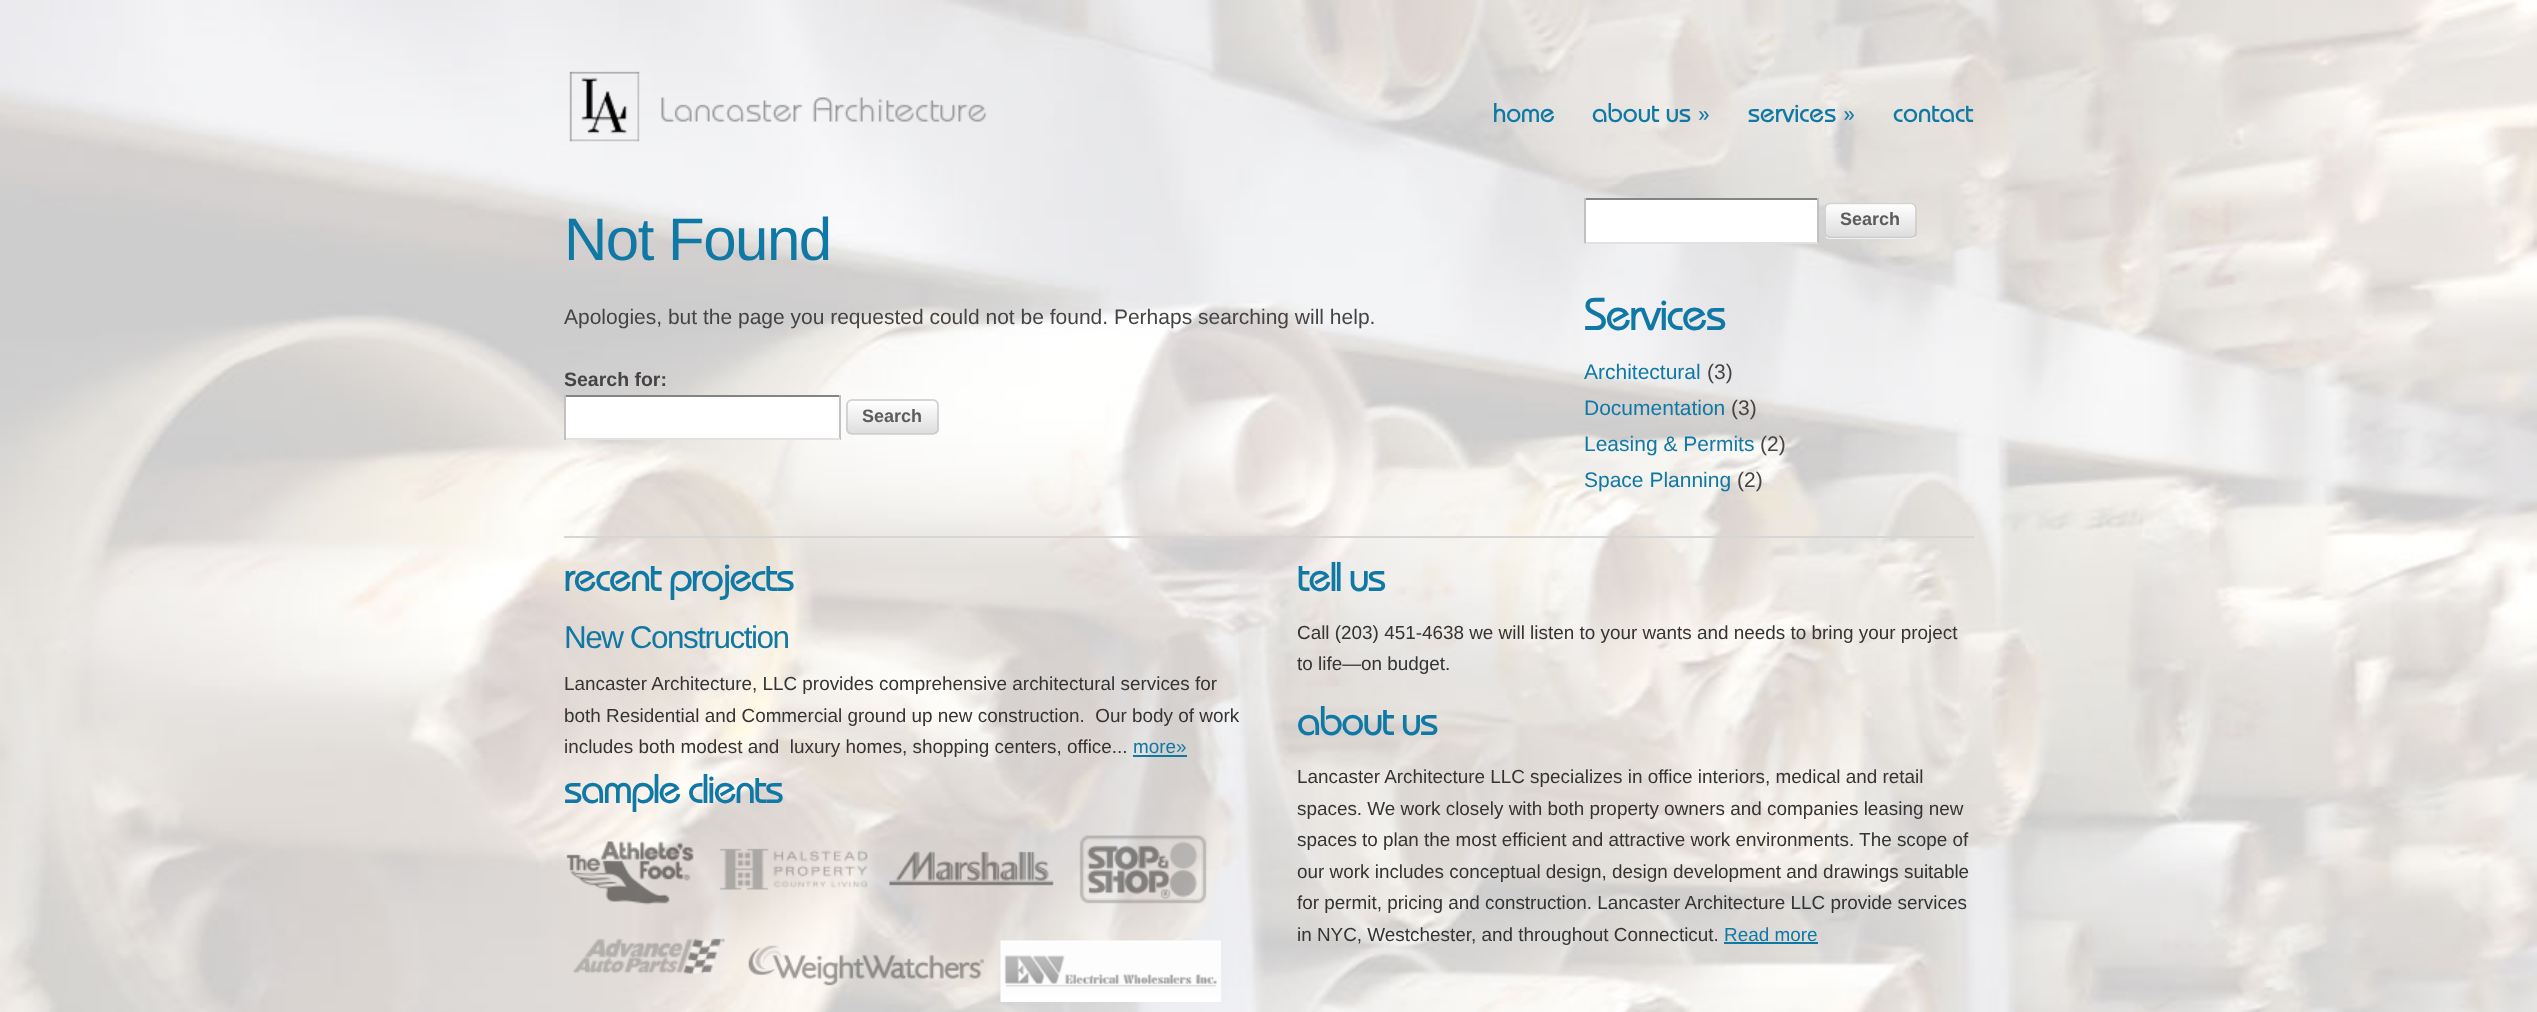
<svg xmlns="http://www.w3.org/2000/svg" width="2537" height="1012" viewBox="0 0 2537 1012">
  <style>
    .t1 { font: 27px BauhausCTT; fill: #0f78a4; }
    .t2 { font: 60px Liberation Sans; letter-spacing: -1.5px; fill: #0f78a4; }
    .t3 { font: 21px Liberation Sans; fill: #444; }
    .t4 { font: bold 19.5px Liberation Sans; fill: #444; }
    .t5 { font: bold 18px Liberation Sans; fill: #5c5c5c; }
    .t6 { font: 46px BauhausCTT; letter-spacing: -1.5px; fill: #0f78a4; }
    .t7 { font: 21px Liberation Sans; fill: #0f78a4; }
    .t8 { font: 41.5px BauhausCTT; letter-spacing: -1.5px; fill: #0f78a4; }
    .t9 { font: 31.5px Liberation Sans; letter-spacing: -1.5px; fill: #0f78a4; }
    .t10 { font: 18.9px Liberation Sans; fill: #343434; }
    .t11 { font: 18.9px Liberation Sans; fill: #0f78a4; }
  </style>
  <defs>
    <clipPath id="clip1"><rect x="846" y="399" width="93" height="36" rx="6"/></clipPath>
    <linearGradient id="g1" gradientUnits="userSpaceOnUse" x1="848" y1="368" x2="848" y2="401"><stop offset="0" stop-color="#fff"/><stop offset="1" stop-color="#ddd"/></linearGradient>
    <linearGradient id="g2" gradientUnits="userSpaceOnUse" x1="848" y1="401" x2="848" y2="434"><stop offset="0" stop-color="#fff"/><stop offset="1" stop-color="#ddd"/></linearGradient>
    <linearGradient id="g3" gradientUnits="userSpaceOnUse" x1="848" y1="434" x2="848" y2="467"><stop offset="0" stop-color="#fff"/><stop offset="1" stop-color="#ddd"/></linearGradient>
    <clipPath id="clip2"><rect x="1824" y="203" width="93" height="36" rx="6"/></clipPath>
    <linearGradient id="g4" gradientUnits="userSpaceOnUse" x1="1826" y1="204" x2="1826" y2="237"><stop offset="0" stop-color="#fff"/><stop offset="1" stop-color="#ddd"/></linearGradient>
    <linearGradient id="g5" gradientUnits="userSpaceOnUse" x1="1826" y1="237" x2="1826" y2="270"><stop offset="0" stop-color="#fff"/><stop offset="1" stop-color="#ddd"/></linearGradient>
  </defs>
  <rect width="100%" height="100%" fill="#fff"/>
  <image x="0" y="0" width="2537" height="1012" href="images/1.png"/>
  <image x="569" y="71" width="418" height="71" href="images/2.png"/>
  <text x="1493" y="122" class="t1">home</text>
  <text x="1592" y="122" class="t1">about us »</text>
  <text x="1748" y="122" class="t1">services »</text>
  <text x="1893" y="122" class="t1">contact</text>
  <text x="564" y="260" class="t2">Not Found</text>
  <text x="564" y="324" class="t3">Apologies, but the page you requested could not be found. Perhaps searching will help.</text>
  <text x="564" y="386" class="t4">Search for:</text>
  <rect x="566" y="397" width="273" height="41" fill="#fff"/>
  <rect x="564" y="395" width="276" height="2" fill="#848484"/>
  <rect x="839" y="395" width="2" height="45" fill="#c1c1c1"/>
  <rect x="564" y="438" width="276" height="2" fill="#e1e1e1"/>
  <rect x="564" y="395" width="2" height="45" fill="#c1c1c1"/>
  <g clip-path="url(#clip1)">
    <rect x="846" y="399" width="93" height="2" fill="url(#g1)"/>
    <rect x="846" y="401" width="93" height="33" fill="url(#g2)"/>
    <rect x="846" y="434" width="93" height="1" fill="url(#g3)"/>
  </g>
  <path d="M848.5 401.5L851.5 400H933.5L936.5 401.5" fill="none" stroke="#d4d4d4" stroke-width="1.5"/>
  <path d="M936.5 401.5C937.5 402.5 938 403.5 938 405V429C938 430.5 937.5 431.5 936.5 432.5" fill="none" stroke="#c9c9c9" stroke-width="1.5"/>
  <path d="M936.5 432.5L933.5 434H851.5L848.5 432.5" fill="none" stroke="#cbcbcb" stroke-width="1.5"/>
  <path d="M848.5 432.5C847.5 431.5 847 430.5 847 429V405C847 403.5 847.5 402.5 848.5 401.5" fill="none" stroke="#c9c9c9" stroke-width="1.5"/>
  <text x="862" y="422" class="t5">Search</text>
  <rect x="1586" y="200" width="231" height="42" fill="#fff"/>
  <rect x="1584" y="198" width="234" height="2" fill="#848484"/>
  <rect x="1817" y="198" width="2" height="45" fill="#c1c1c1"/>
  <rect x="1584" y="242" width="234" height="2" fill="#e1e1e1"/>
  <rect x="1584" y="198" width="2" height="45" fill="#c1c1c1"/>
  <g clip-path="url(#clip2)">
    <rect x="1824" y="204" width="93" height="33" fill="url(#g4)"/>
    <rect x="1824" y="237" width="93" height="2" fill="url(#g5)"/>
  </g>
  <path d="M1826.5 205L1829.5 203.5H1911.5L1914.5 205" fill="none" stroke="#d4d4d4" stroke-width="1.5"/>
  <path d="M1914.5 205C1915.5 206 1916 207 1916 208.5V232.5C1916 234 1915.5 235 1914.5 236" fill="none" stroke="#c9c9c9" stroke-width="1.5"/>
  <path d="M1914.5 236L1911.5 237.5H1829.5L1826.5 236" fill="none" stroke="#cbcbcb" stroke-width="1.5"/>
  <path d="M1826.5 236C1825.5 235 1825 234 1825 232.5V208.5C1825 207 1825.5 206 1826.5 205" fill="none" stroke="#c9c9c9" stroke-width="1.5"/>
  <text x="1840" y="225" class="t5">Search</text>
  <text x="1584" y="330" class="t6">Services</text>
  <text x="1584" y="379" class="t7">Architectural</text>
  <text x="1707" y="379" class="t3">(3)</text>
  <text x="1584" y="415" class="t7">Documentation</text>
  <text x="1731" y="415" class="t3">(3)</text>
  <text x="1584" y="451" class="t7">Leasing &amp; Permits</text>
  <text x="1760" y="451" class="t3">(2)</text>
  <text x="1584" y="487" class="t7">Space Planning</text>
  <text x="1737" y="487" class="t3">(2)</text>
  <rect x="564" y="536" width="1410" height="2" fill="#d6d6d6"/>
  <text x="564" y="591" class="t8">recent projects</text>
  <text x="564" y="648" class="t9">New Construction</text>
  <text x="564" y="690" class="t10">Lancaster Architecture, LLC provides comprehensive architectural services for</text>
  <text x="564" y="722" class="t10" xml:space="preserve">both Residential and Commercial ground up new construction.  Our body of work</text>
  <text x="564" y="753" class="t10" xml:space="preserve">includes both modest and  luxury homes, shopping centers, office...</text>
  <text x="1133" y="753" class="t11">more»</text>
  <rect x="1133" y="755" width="54" height="2" fill="#0f78a4"/>
  <text x="564" y="803" class="t8">sample clients</text>
  <image x="566" y="841" width="128" height="64" href="images/3.png"/>
  <image x="719" y="848" width="149" height="42" href="images/4.png"/>
  <image x="889" y="851" width="165" height="35" href="images/5.png"/>
  <image x="1079" y="835" width="128" height="69" href="images/6.png"/>
  <image x="573" y="938" width="152" height="36" href="images/7.png"/>
  <image x="748" y="945" width="237" height="41" href="images/8.png"/>
  <image x="1000" y="940" width="221" height="62" href="images/9.png"/>
  <text x="1297" y="591" class="t8">tell us</text>
  <text x="1297" y="639" class="t10">Call (203) 451-4638 we will listen to your wants and needs to bring your project</text>
  <text x="1297" y="670" class="t10">to life—on budget.</text>
  <text x="1297" y="735" class="t8">about us</text>
  <text x="1297" y="783" class="t10">Lancaster Architecture LLC specializes in office interiors, medical and retail</text>
  <text x="1297" y="815" class="t10">spaces. We work closely with both property owners and companies leasing new</text>
  <text x="1297" y="846" class="t10">spaces to plan the most efficient and attractive work environments. The scope of</text>
  <text x="1297" y="878" class="t10">our work includes conceptual design, design development and drawings suitable</text>
  <text x="1297" y="909" class="t10">for permit, pricing and construction. Lancaster Architecture LLC provide services</text>
  <text x="1297" y="941" class="t10">in NYC, Westchester, and throughout Connecticut.</text>
  <text x="1724" y="941" class="t11">Read more</text>
  <rect x="1724" y="942" width="94" height="2" fill="#0f78a4"/>
</svg>
